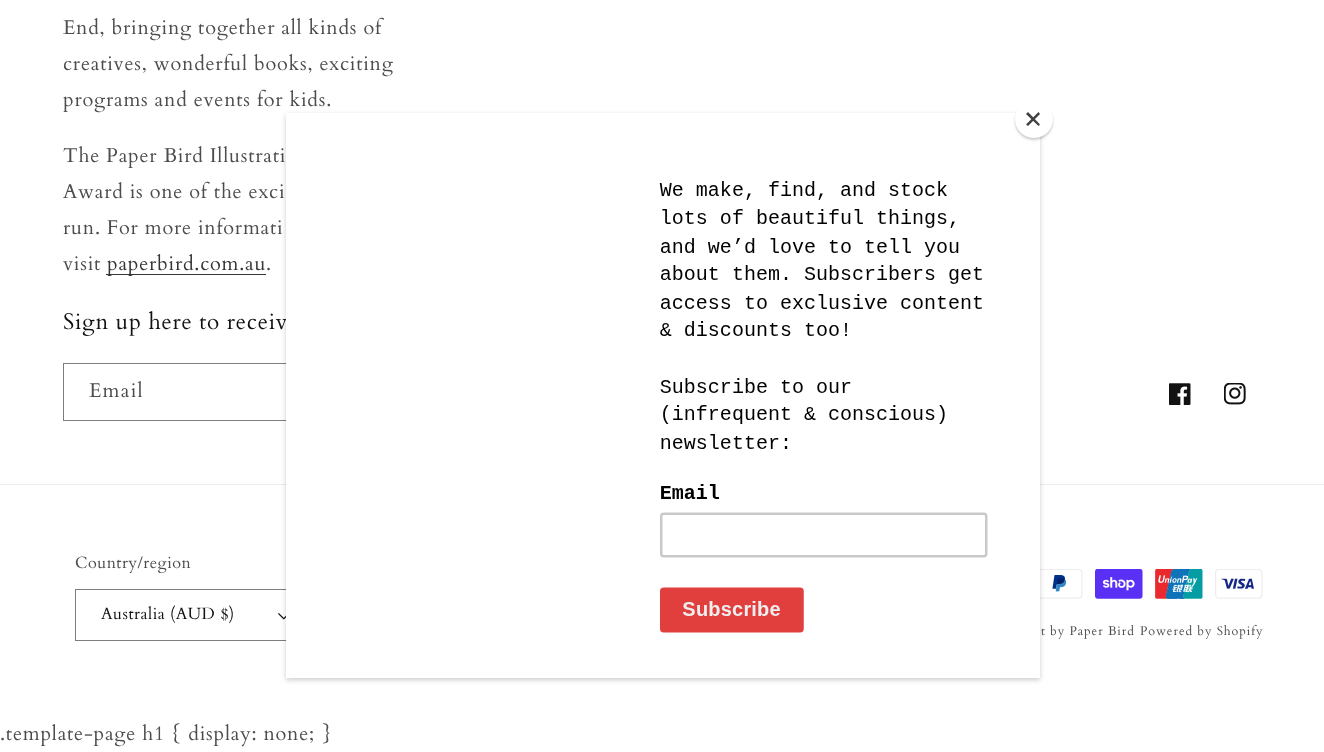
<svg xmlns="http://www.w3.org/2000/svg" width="1324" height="752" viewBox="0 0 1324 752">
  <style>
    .t1 { font: 20px Cardo; letter-spacing: 0.75px; fill: #4d4d4d; }
    .t2 { font: 20px Cardo; letter-spacing: 0.75px; fill: #353535; }
    .t3 { font: 22.5px Cardo; letter-spacing: 0.75px; fill: #121212; }
    .t4 { font: 20px Cardo; letter-spacing: 1.25px; fill: #4d4d4d; }
    .t5 { font: 16.25px Cardo; letter-spacing: 0.5px; fill: #4d4d4d; }
    .t6 { font: 16.25px Cardo; letter-spacing: 0.5px; fill: #121212; }
    .t7 { font: 12.5px Cardo; letter-spacing: 0.9px; fill: #4d4d4d; }
  </style>
  <defs>
    <clipPath id="clip1"><path d="M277 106H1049V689H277ZM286 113H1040V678H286Z" clip-rule="evenodd"/></clipPath>
  </defs>
  <rect width="100%" height="100%" fill="#fff"/>
  <text x="63" y="34" class="t1">End, bringing together all kinds of</text>
  <text x="63" y="70" class="t1">creatives, wonderful books, exciting</text>
  <text x="63" y="106" class="t1">programs and events for kids.</text>
  <text x="63" y="162" class="t1">The Paper Bird Illustrati</text>
  <text x="63" y="198" class="t1">Award is one of the exci</text>
  <text x="63" y="234" class="t1">run. For more informati</text>
  <text x="63" y="270" class="t1">visit</text>
  <rect x="106" y="274" width="160" height="1" fill="#363636"/>
  <text x="107" y="270" class="t2">paperbird.com.au</text>
  <text x="266" y="270" class="t1">.</text>
  <text x="63" y="329" class="t3">Sign up here to receiv</text>
  <rect x="63.5" y="363.5" width="449" height="57" fill="none" stroke="#7d7d7d"/>
  <text x="89" y="397" class="t4">Email</text>
  <image x="1169" y="383" width="22" height="22" href="images/1.png"/>
  <image x="1224" y="383" width="22" height="22" href="images/2.png"/>
  <rect x="0" y="484" width="1324" height="1" fill="#ececec"/>
  <text x="75" y="568" class="t5">Country/region</text>
  <image x="278" y="613" width="8" height="7" href="images/3.png"/>
  <rect x="75.5" y="589.5" width="234" height="51" fill="none" stroke="#7d7d7d"/>
  <text x="101" y="619" class="t6">Australia (AUD $)</text>
  <image x="1040" y="569" width="43" height="30" href="images/4.png"/>
  <image x="1095" y="569" width="48" height="30" href="images/5.png"/>
  <image x="1155" y="569" width="48" height="30" href="images/6.png"/>
  <image x="1215" y="569" width="48" height="30" href="images/7.png"/>
  <text x="1041" y="635" class="t7">t by Paper Bird</text>
  <text x="1140" y="635" class="t7">Powered by Shopify</text>
  <g clip-path="url(#clip1)">
    <rect x="286" y="115" width="754" height="565" fill="#00000033" filter="blur(2.5px)"/>
  </g>
  <image x="286" y="115" width="754" height="563" href="images/8.png"/>
  <rect x="1015" y="103" width="38" height="37" rx="18.5" fill="#00000033" filter="blur(1px)"/>
  <circle cx="1034" cy="119" r="19" fill="#fff"/>
  <path d="M1038.5 112L1040 114L1028 126L1026 124.5Z" fill="#414141"/>
  <path d="M1026 114L1028 112L1040 124.5L1038.5 126Z" fill="#414141"/>
  <text x="0" y="740" class="t1">.template-page h1 { display: none; }</text>
</svg>
